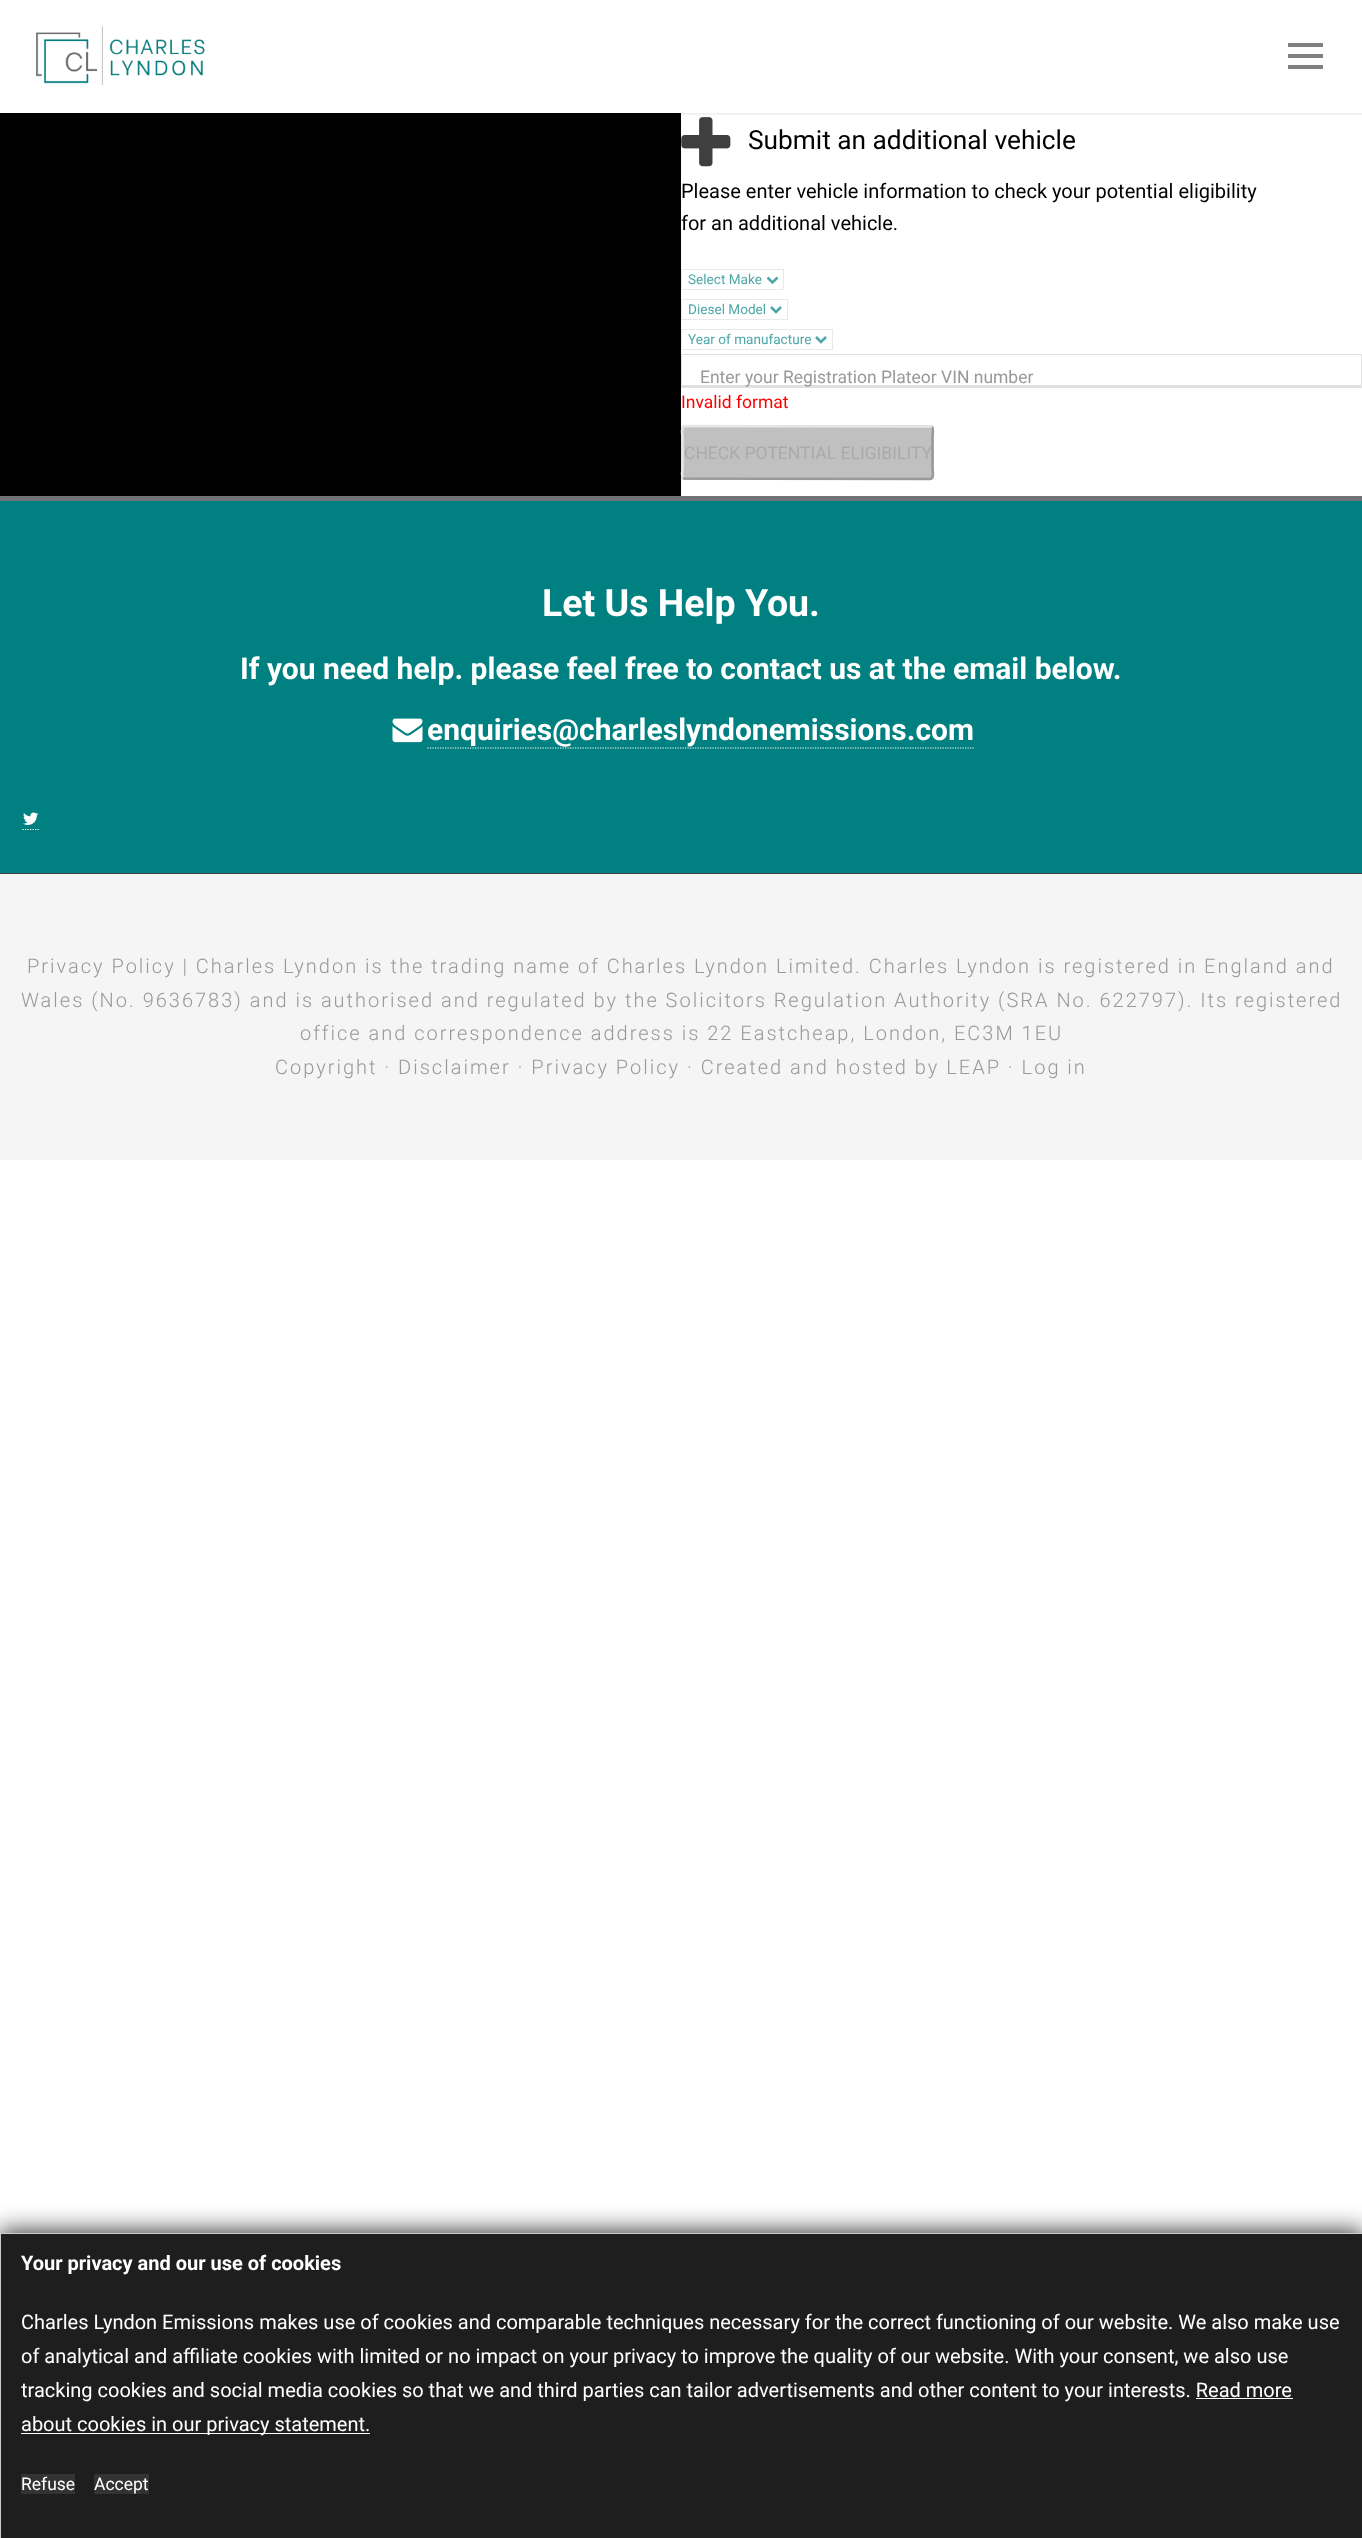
<svg xmlns="http://www.w3.org/2000/svg" width="1362" height="2538" viewBox="0 0 1362 2538">
  <style>
    .t1 { font: 26.25px Roboto; fill: #000; }
    .t2 { font: 20px Roboto; fill: #000; }
    .t3 { font: 13.6px Roboto; fill: #4da6a7; }
    .t4 { font: 17.5px Roboto; fill: #999; }
    .t5 { font: 17.5px Roboto; fill: #f00; }
    .t6 { font: 17.5px Roboto; fill: #aaa; }
    .t7 { font: bold 37.5px Roboto; fill: #fff; }
    .t8 { font: bold 30px Roboto; fill: #fff; }
    .t9 { font: 300 20px Roboto; letter-spacing: 2px; fill: #999; }
    .t10 { font: bold 20px Roboto; fill: #fff; }
    .t11 { font: 20px Roboto; fill: #fff; }
    .t12 { font: 17.5px Roboto; fill: #fff; }
  </style>
  <rect width="100%" height="100%" fill="#fff"/>
  <rect x="0" y="113" width="681" height="383" fill="#000"/>
  <image x="681" y="117" width="50" height="50" href="images/2.png"/>
  <rect x="0" y="1" width="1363" height="113" fill="#0000001a" filter="blur(1px)"/>
  <rect x="0" y="0" width="1362" height="113" fill="#fff"/>
  <image x="36" y="25" width="169" height="60" href="images/1.png"/>
  <rect x="1288" y="43" width="35" height="4" fill="#808080"/>
  <rect x="1288" y="54" width="35" height="4" fill="#808080"/>
  <rect x="1288" y="65" width="35" height="4" fill="#808080"/>
  <text x="748" y="149" class="t1">Submit an additional vehicle</text>
  <text x="681" y="198" class="t2">Please enter vehicle information to check your potential eligibility</text>
  <text x="681" y="230" class="t2">for an additional vehicle.</text>
  <rect x="681.5" y="269.5" width="102" height="20" fill="none" stroke="#e9e9e9"/>
  <path d="M767.5 277.5L772.5 282.5L777.5 277.5" fill="none" stroke="#4da6a7" stroke-width="2.5"/>
  <text x="688" y="284" class="t3">Select Make</text>
  <rect x="681.5" y="299.5" width="106" height="20" fill="none" stroke="#e9e9e9"/>
  <path d="M771 307L776 312L781 307" fill="none" stroke="#4da6a7" stroke-width="2.5"/>
  <text x="688" y="314" class="t3">Diesel Model</text>
  <rect x="681.5" y="329.5" width="151" height="20" fill="none" stroke="#e9e9e9"/>
  <path d="M816 337L821 342L826 337" fill="none" stroke="#4da6a7" stroke-width="2.5"/>
  <text x="688" y="344" class="t3">Year of manufacture</text>
  <rect x="681" y="354" width="681" height="1" fill="#e0e0e0"/>
  <rect x="1361" y="354" width="1" height="34" fill="#e0e0e0"/>
  <rect x="681" y="385" width="681" height="3" fill="#e0e0e0"/>
  <rect x="681" y="354" width="1" height="34" fill="#e0e0e0"/>
  <text x="700" y="383" class="t4">Enter your Registration Plateor VIN number</text>
  <text x="681" y="408" class="t5">Invalid format</text>
  <rect x="681" y="425" width="253" height="55" rx="4" fill="#c0c0c0"/>
  <path d="M932 427C934 429.5 932.5 433.5 932.5 436.5V468.5C932.5 469 934.5 478.5 930 479L684.5 478.5L683 478" fill="none" stroke="#999" stroke-width="2.5"/>
  <path d="M683 478C681 475.5 682.5 471.5 682.5 468.5V436.5C682.5 436 680.5 426.5 685 426L930.5 426.5L932 427" fill="none" stroke="#e6e6e6" stroke-width="2.5"/>
  <text x="684" y="459" class="t6">CHECK POTENTIAL ELIGIBILITY</text>
  <rect x="0" y="874" width="1362" height="286" fill="#f5f5f5"/>
  <rect x="0" y="501" width="1362" height="372" fill="#008081"/>
  <rect x="0" y="496" width="1362" height="5" fill="#727376"/>
  <text x="542" y="616" class="t7">Let Us Help You.</text>
  <text x="240" y="679" class="t8">If you need help. please feel free to contact us at the email below.</text>
  <image x="392" y="718" width="31" height="25" href="images/3.png"/>
  <text x="427" y="740" class="t8">enquiries@charleslyndonemissions.com</text>
  <path d="M427.5 748H974" fill="none" stroke="#fff" stroke-width="1.2" stroke-dasharray="1.25 1.25"/>
  <rect x="0" y="873" width="1362" height="1" fill="#444"/>
  <path d="M22.5 829.5H39" fill="none" stroke="#fff" stroke-width="1.2" stroke-dasharray="1.25 1.25"/>
  <image x="23" y="812" width="16" height="13" href="images/4.png"/>
  <text x="27" y="973" class="t9">Privacy Policy | Charles Lyndon is the trading name of Charles Lyndon Limited. Charles Lyndon is registered in England and</text>
  <text x="21" y="1007" class="t9">Wales (No. 9636783) and is authorised and regulated by the Solicitors Regulation Authority (SRA No. 622797). Its registered</text>
  <text x="300" y="1040" class="t9">office and correspondence address is 22 Eastcheap, London, EC3M 1EU</text>
  <text x="275" y="1074" class="t9">Copyright · Disclaimer · Privacy Policy · Created and hosted by LEAP · Log in</text>
  <rect x="-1" y="2231" width="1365" height="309" fill="#333" filter="blur(12.5px)"/>
  <rect x="0.5" y="2233.5" width="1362" height="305" fill="#1e1e1e" stroke="#ccc"/>
  <text x="21" y="2270" class="t10">Your privacy and our use of cookies</text>
  <text x="21" y="2329" class="t11">Charles Lyndon Emissions makes use of cookies and comparable techniques necessary for the correct functioning of our website. We also make use</text>
  <text x="21" y="2363" class="t11">of analytical and affiliate cookies with limited or no impact on your privacy to improve the quality of our website. With your consent, we also use</text>
  <text x="21" y="2397" class="t11">tracking cookies and social media cookies so that we and third parties can tailor advertisements and other content to your interests. Read more</text>
  <rect x="21" y="2433" width="349" height="1" fill="#fff"/>
  <text x="21" y="2431" class="t11">about cookies in our privacy statement.</text>
  <rect x="1196" y="2398" width="97" height="1" fill="#fff"/>
  <rect x="21" y="2474" width="54" height="20" fill="#333"/>
  <text x="21" y="2490" class="t12">Refuse</text>
  <rect x="94" y="2474" width="55" height="20" fill="#333"/>
  <text x="94" y="2490" class="t12">Accept</text>
</svg>
